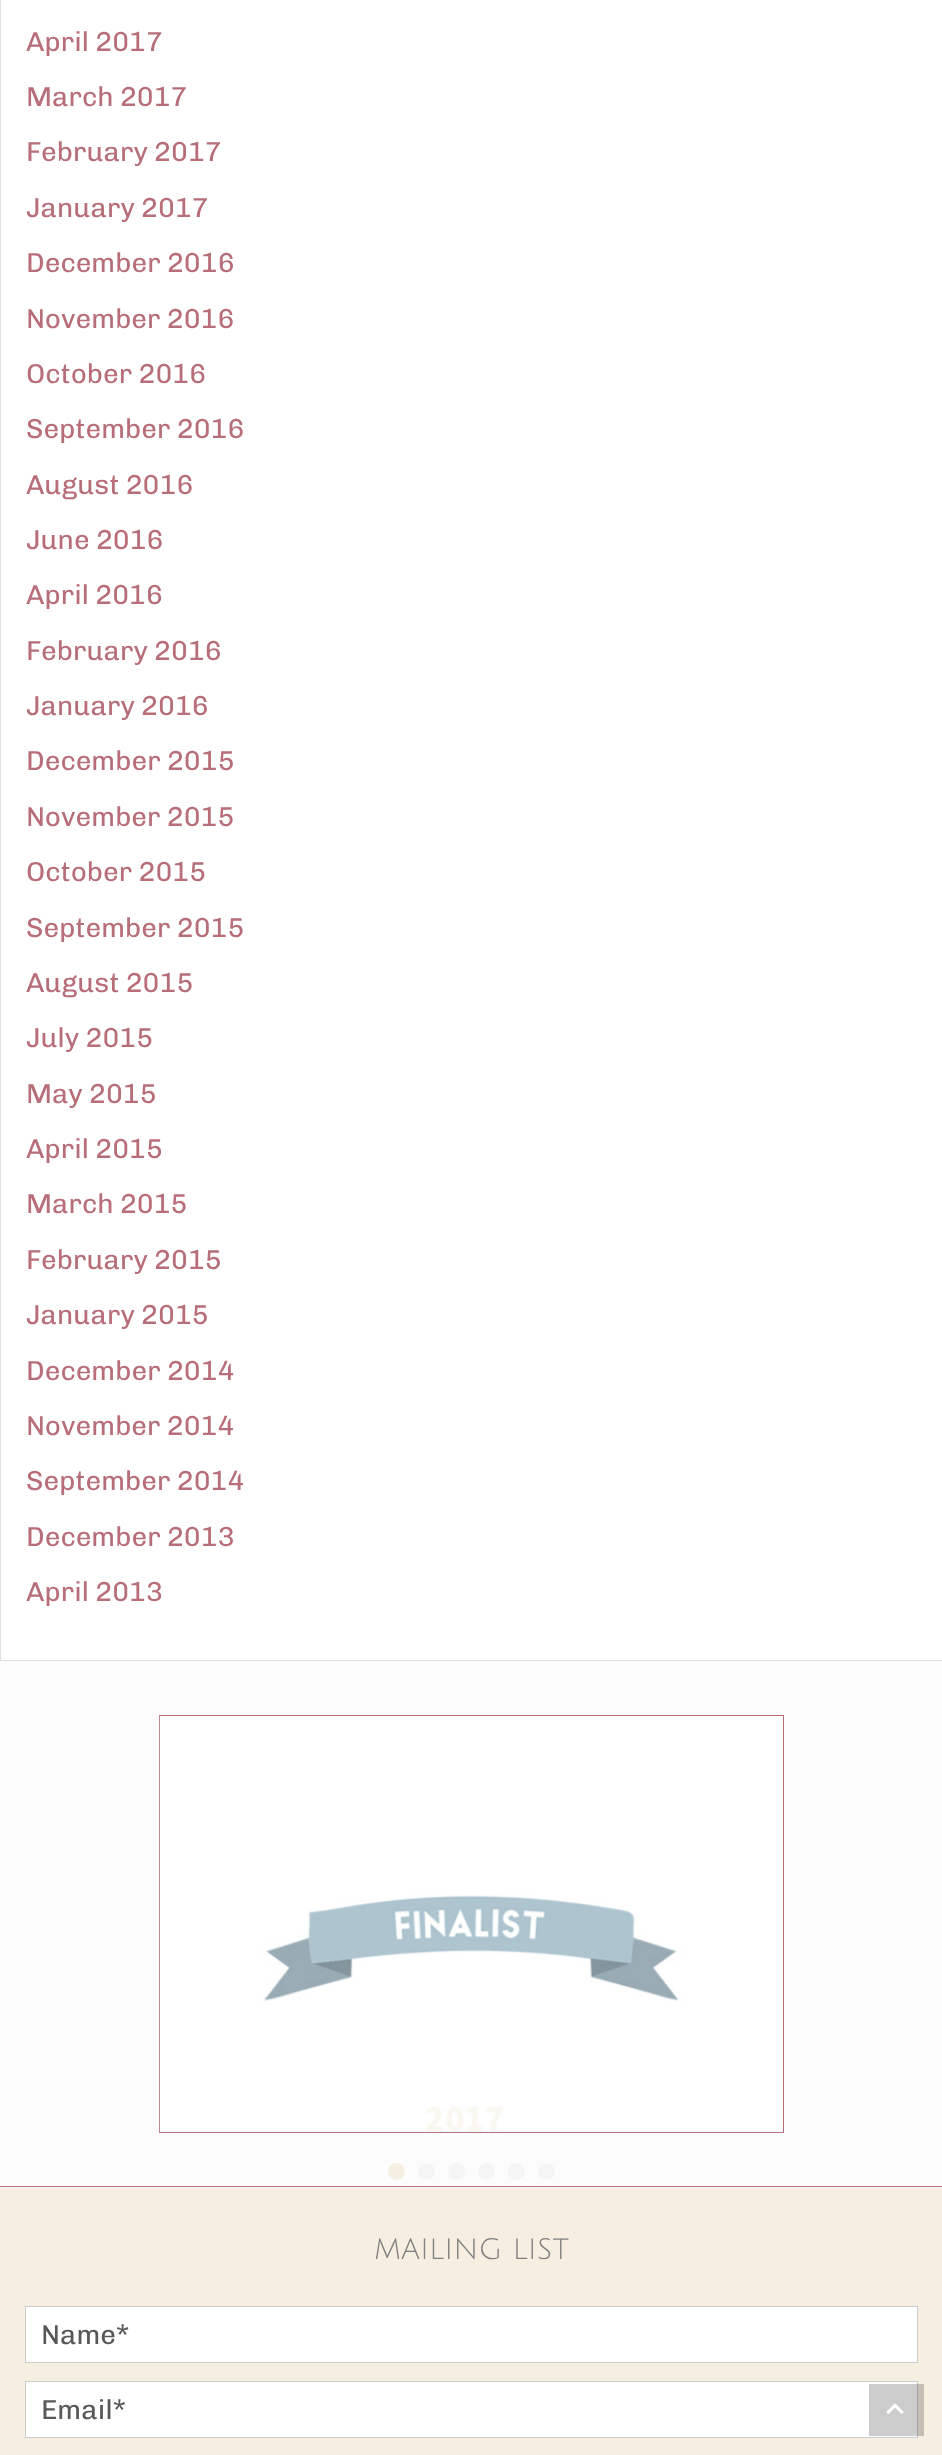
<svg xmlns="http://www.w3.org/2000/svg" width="942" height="2455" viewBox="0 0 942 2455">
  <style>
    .t1 { font: 27.5px Chivo; fill: #b76e79; }
    .t2 { font: 28.75px Julius Sans One; fill: #808080; }
    .t3 { font: 27.5px Chivo; fill: #585858; }
  </style>
  <rect width="100%" height="100%" fill="#fff"/>
  <rect x="0.5" y="-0.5" width="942" height="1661" fill="none" stroke="#e0e0e0"/>
  <text x="26" y="51" class="t1">April 2017</text>
  <text x="26" y="106" class="t1">March 2017</text>
  <text x="26" y="161" class="t1">February 2017</text>
  <text x="26" y="217" class="t1">January 2017</text>
  <text x="26" y="272" class="t1">December 2016</text>
  <text x="26" y="328" class="t1">November 2016</text>
  <text x="26" y="383" class="t1">October 2016</text>
  <text x="26" y="438" class="t1">September 2016</text>
  <text x="26" y="494" class="t1">August 2016</text>
  <text x="26" y="549" class="t1">June 2016</text>
  <text x="26" y="604" class="t1">April 2016</text>
  <text x="26" y="660" class="t1">February 2016</text>
  <text x="26" y="715" class="t1">January 2016</text>
  <text x="26" y="770" class="t1">December 2015</text>
  <text x="26" y="826" class="t1">November 2015</text>
  <text x="26" y="881" class="t1">October 2015</text>
  <text x="26" y="937" class="t1">September 2015</text>
  <text x="26" y="992" class="t1">August 2015</text>
  <text x="26" y="1047" class="t1">July 2015</text>
  <text x="26" y="1103" class="t1">May 2015</text>
  <text x="26" y="1158" class="t1">April 2015</text>
  <text x="26" y="1213" class="t1">March 2015</text>
  <text x="26" y="1269" class="t1">February 2015</text>
  <text x="26" y="1324" class="t1">January 2015</text>
  <text x="26" y="1380" class="t1">December 2014</text>
  <text x="26" y="1435" class="t1">November 2014</text>
  <text x="26" y="1490" class="t1">September 2014</text>
  <text x="26" y="1546" class="t1">December 2013</text>
  <text x="26" y="1601" class="t1">April 2013</text>
  <rect x="0" y="1661" width="942" height="525" fill="#fcfcfc"/>
  <rect x="159.5" y="1715.5" width="624" height="417" fill="none" stroke="#b76e79"/>
  <image x="159" y="1716" width="624" height="417" href="images/1.png"/>
  <circle cx="396.5" cy="2171.5" r="8.5" fill="#f5eee1"/>
  <circle cx="426.5" cy="2171.5" r="8.5" fill="#f5f5f5"/>
  <circle cx="456.5" cy="2171.5" r="8.5" fill="#f5f5f5"/>
  <circle cx="486.5" cy="2171.5" r="8.5" fill="#f5f5f5"/>
  <circle cx="516.5" cy="2171.5" r="8.5" fill="#f5f5f5"/>
  <circle cx="546.5" cy="2171.5" r="8.5" fill="#f5f5f5"/>
  <rect x="0" y="2188" width="942" height="267" fill="#f5eee1"/>
  <rect x="0" y="2186" width="942" height="1" fill="#b76e79"/>
  <text x="374" y="2259" class="t2">MAILING LIST</text>
  <rect x="25.5" y="2306.5" width="892" height="56" fill="#fff" stroke="#ccc"/>
  <text x="41" y="2344" class="t3">Name*</text>
  <rect x="25.5" y="2381.5" width="892" height="56" fill="#fff" stroke="#ccc"/>
  <text x="41" y="2419" class="t3">Email*</text>
  <rect x="869" y="2384" width="55" height="52" fill="#00000033"/>
  <image x="886" y="2403" width="18" height="11" href="images/2.png"/>
</svg>
